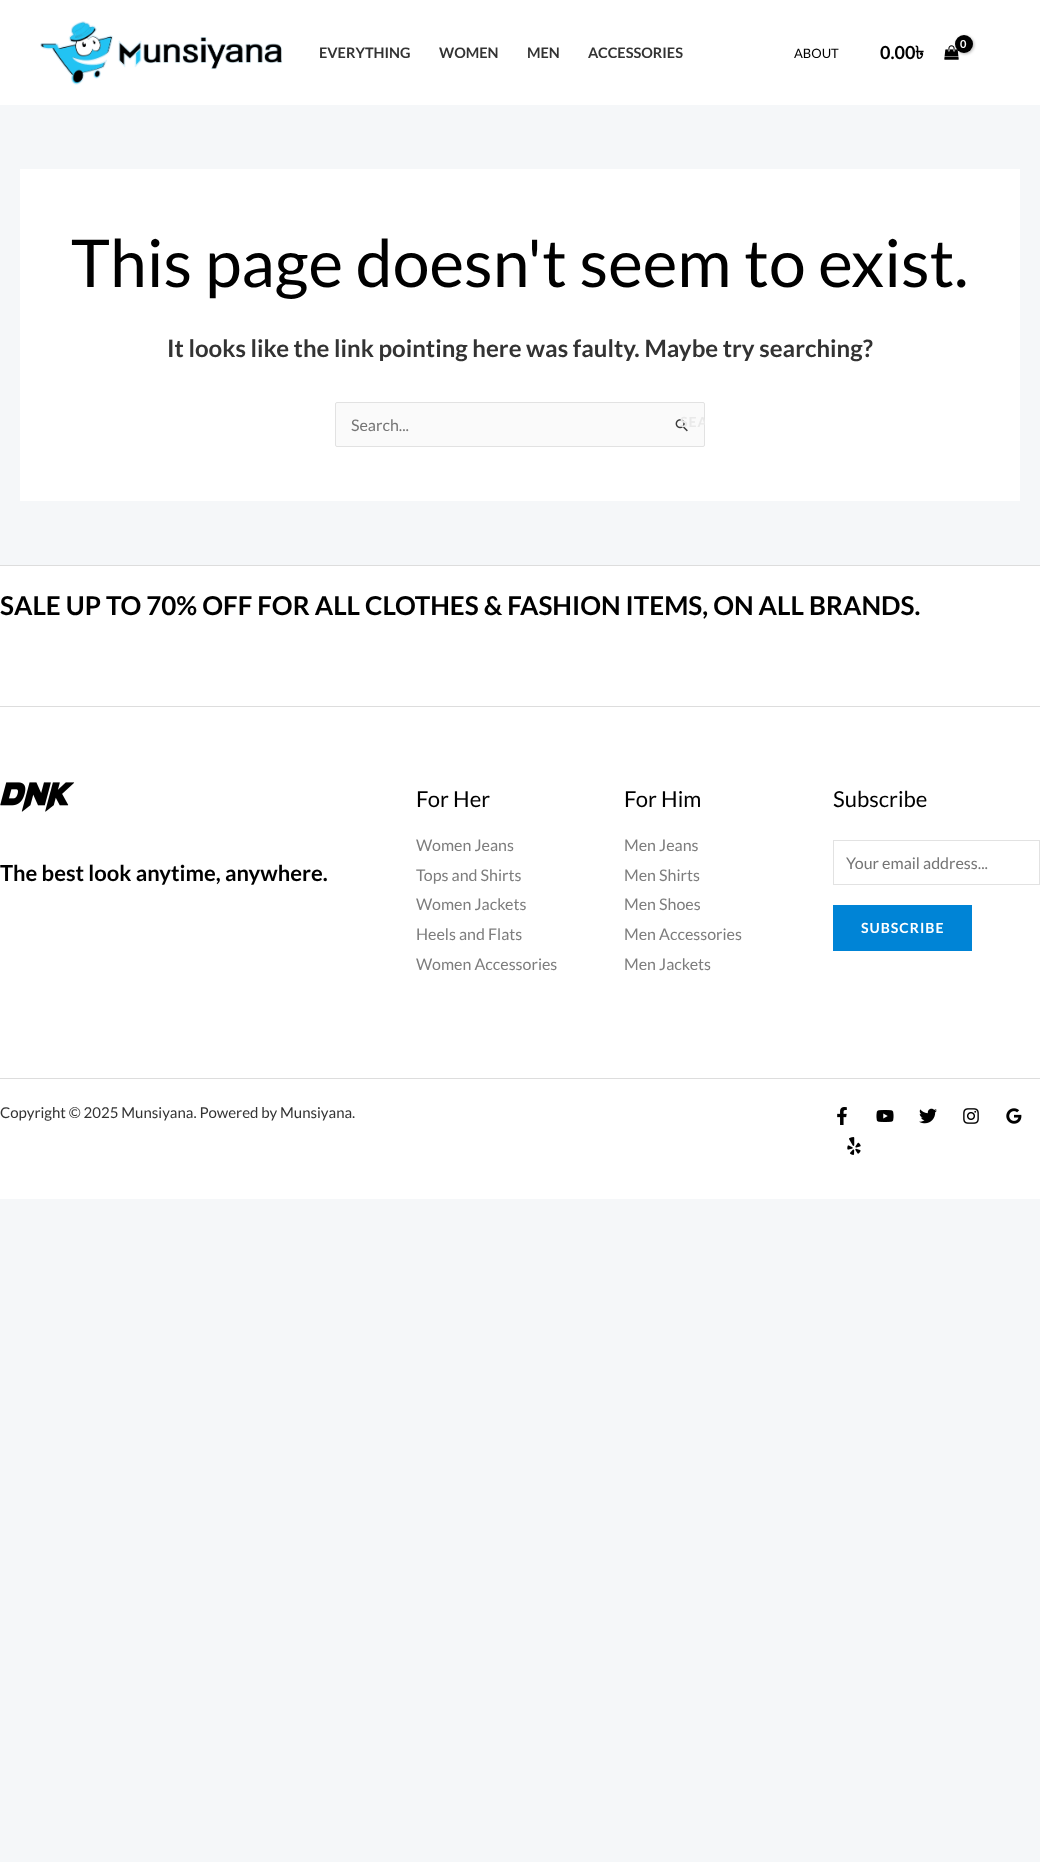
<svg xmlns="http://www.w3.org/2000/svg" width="1040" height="1862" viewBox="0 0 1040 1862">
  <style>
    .t1 { font: bold 14.5px Lato; fill: #333; }
    .t2 { font: 13px Lato; fill: #000; }
    .t3 { font: bold 11px Lato; fill: #fff; }
    .t4 { font: bold 18px Lato; fill: #000; }
    .t5 { font: bold 18px Lohit Bengali; fill: #000; }
    .t6 { font: 66px Lato; fill: #000; }
    .t7 { font: bold 24px Lato; fill: #333; }
    .t8 { font: 16px Lato; fill: #757575; }
    .t9 { font: bold 14px Lato; letter-spacing: 1px; fill: #e9e9e9; }
    .t10 { font: bold 26px Lato; fill: #000; }
    .t11 { font: bold 22px Lato; fill: #000; }
    .t12 { font: 22px Lato; fill: #000; }
    .t13 { font: 16px Lato; fill: #7d7d7d; }
    .t14 { font: bold 14px Lato; letter-spacing: 1px; fill: #fff; }
    .t15 { font: 15px Lato; fill: #333; }
  </style>
  <defs>
    <clipPath id="clip1"><rect x="660" y="402" width="45" height="40" rx="2"/></clipPath>
  </defs>
  <rect width="100%" height="100%" fill="#f5f7f9"/>
  <rect x="0" y="0" width="1040" height="105" fill="#fff"/>
  <image x="40" y="21" width="243" height="64" href="images/1.png"/>
  <text x="319" y="58" class="t1">EVERYTHING</text>
  <text x="439" y="58" class="t1">WOMEN</text>
  <text x="527" y="58" class="t1">MEN</text>
  <text x="588" y="58" class="t1">ACCESSORIES</text>
  <text x="794" y="58" class="t2">ABOUT</text>
  <image x="944" y="45" width="15" height="15" href="images/2.png"/>
  <rect x="956" y="36" width="18" height="18" rx="9" fill="#0000004d" filter="blur(1.5px)"/>
  <circle cx="964" cy="44" r="9" fill="#000"/>
  <text x="960" y="48" class="t3">0</text>
  <text x="880" y="59" class="t4">0.00</text>
  <text x="915" y="59" class="t5">৳</text>
  <rect x="20" y="169" width="1000" height="332" fill="#fff"/>
  <text x="71" y="287" class="t6">This page doesn't seem to exist.</text>
  <text x="167" y="357" class="t7">It looks like the link pointing here was faulty. Maybe try searching?</text>
  <rect x="335.5" y="402.5" width="369" height="44" rx="1.5" fill="#fafafa" stroke="#e2e2e2"/>
  <text x="351" y="431" class="t8">Search...</text>
  <image x="675" y="419" width="13" height="13" href="images/3.png"/>
  <g clip-path="url(#clip1)">
    <text x="680" y="427" class="t9">SEA</text>
  </g>
  <rect x="0" y="566" width="1040" height="633" fill="#fff"/>
  <rect x="0" y="565" width="1040" height="1" fill="#ddd"/>
  <text x="0" y="615" class="t10">SALE UP TO 70% OFF FOR ALL CLOTHES &amp; FASHION ITEMS, ON ALL BRANDS.</text>
  <rect x="0" y="706" width="1040" height="1" fill="#ddd"/>
  <image x="0" y="782" width="75" height="30" href="images/4.png"/>
  <text x="0" y="881" class="t11">The best look anytime, anywhere.</text>
  <text x="416" y="807" class="t12">For Her</text>
  <text x="416" y="851" class="t13">Women Jeans</text>
  <text x="416" y="881" class="t13">Tops and Shirts</text>
  <text x="416" y="910" class="t13">Women Jackets</text>
  <text x="416" y="940" class="t13">Heels and Flats</text>
  <text x="416" y="970" class="t13">Women Accessories</text>
  <text x="624" y="807" class="t12">For Him</text>
  <text x="624" y="851" class="t13">Men Jeans</text>
  <text x="624" y="881" class="t13">Men Shirts</text>
  <text x="624" y="910" class="t13">Men Shoes</text>
  <text x="624" y="940" class="t13">Men Accessories</text>
  <text x="624" y="970" class="t13">Men Jackets</text>
  <text x="833" y="807" class="t12">Subscribe</text>
  <rect x="833.5" y="840.5" width="206" height="44" fill="none" stroke="#e2e2e2"/>
  <text x="846" y="869" class="t8">Your email address...</text>
  <rect x="833" y="905" width="139" height="46" fill="#0084d6"/>
  <text x="861" y="933" class="t14">SUBSCRIBE</text>
  <rect x="0" y="1078" width="1040" height="1" fill="#ddd"/>
  <text x="0" y="1118" class="t15">Copyright © 2025 Munsiyana. Powered by Munsiyana.</text>
  <image x="837" y="1107" width="10" height="18" href="images/5.png"/>
  <image x="876" y="1110" width="18" height="12" href="images/6.png"/>
  <image x="919" y="1108" width="18" height="16" href="images/7.png"/>
  <image x="963" y="1108" width="16" height="16" href="images/8.png"/>
  <image x="1006" y="1108" width="16" height="16" href="images/9.png"/>
  <image x="847" y="1137" width="14" height="18" href="images/10.png"/>
</svg>
